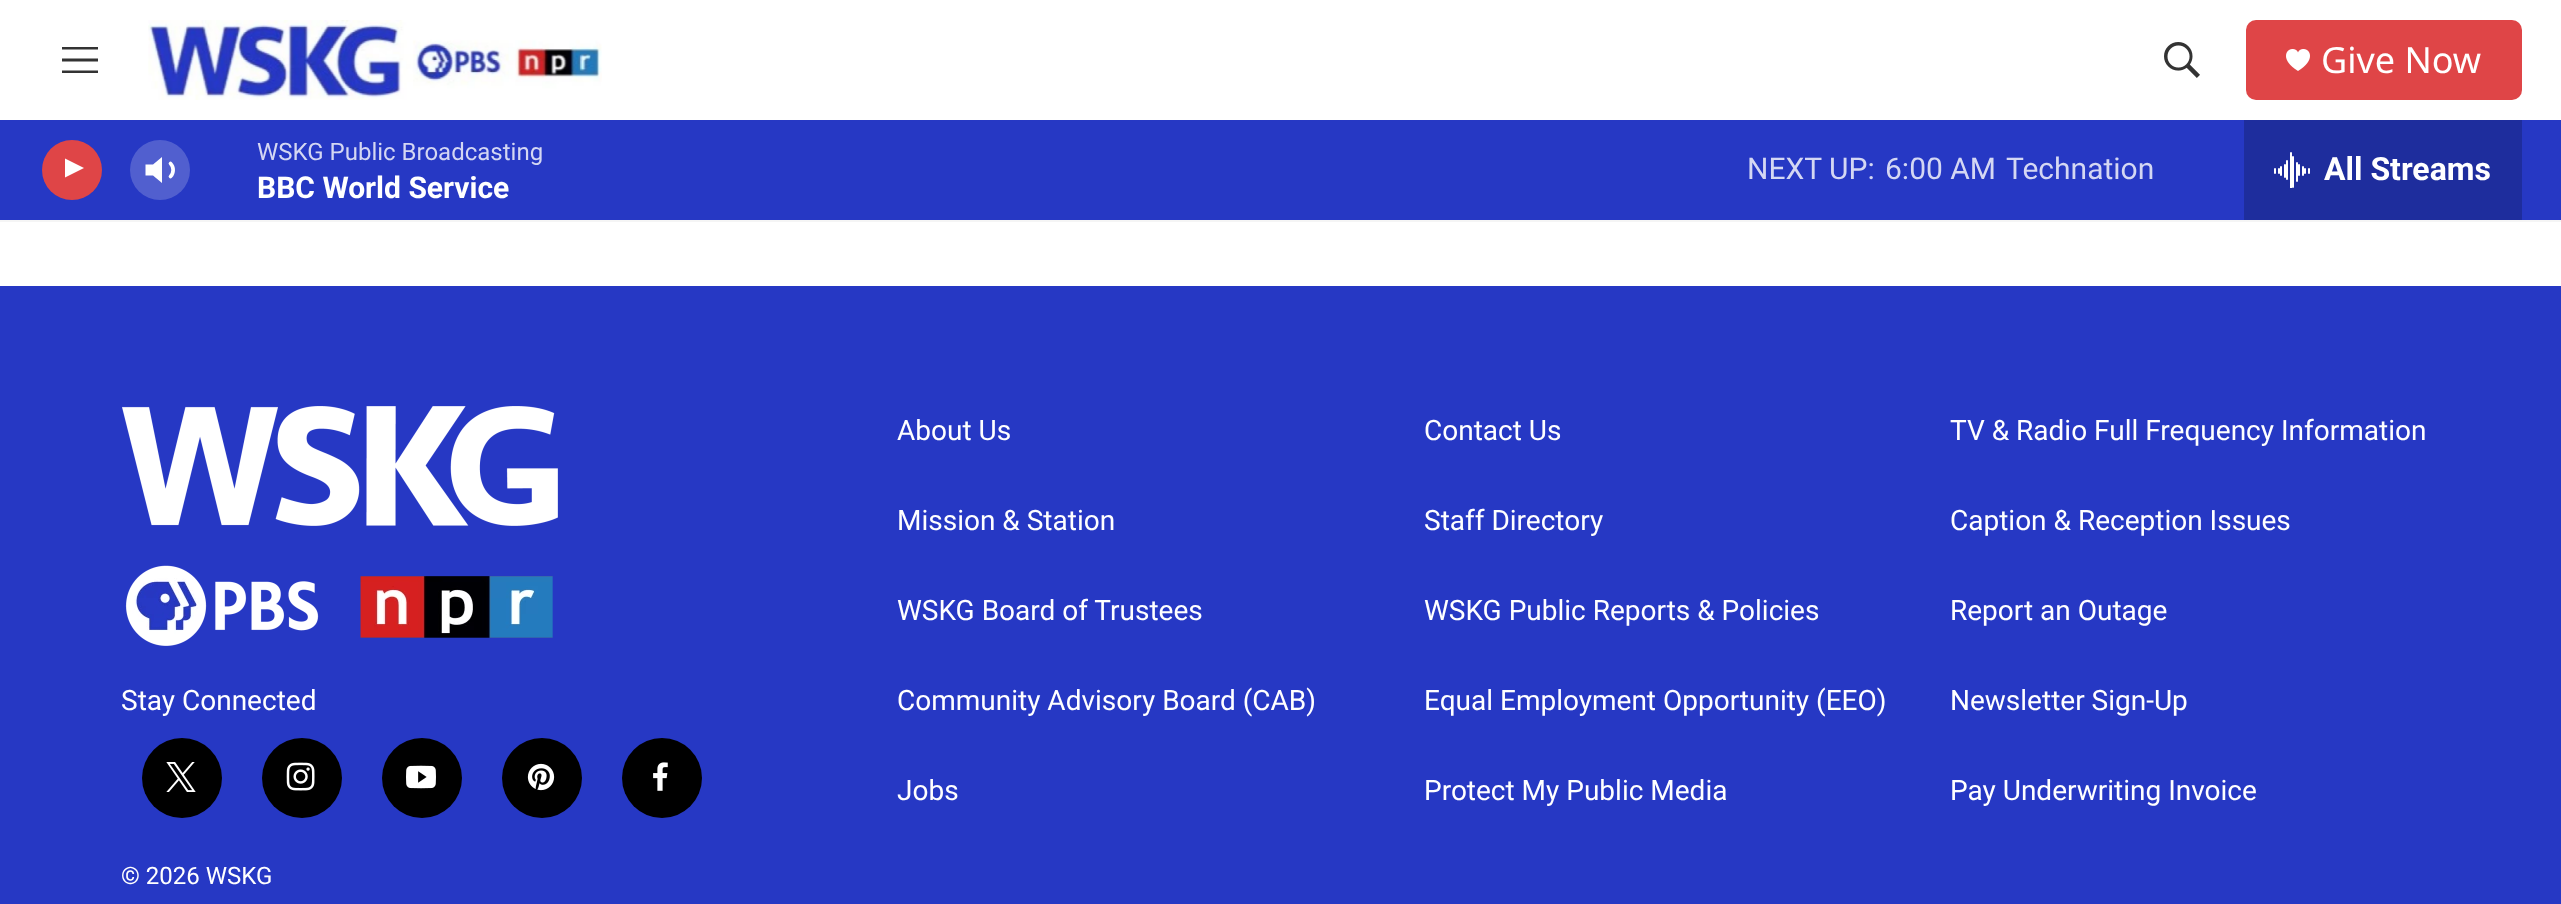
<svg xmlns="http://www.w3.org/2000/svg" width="2561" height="904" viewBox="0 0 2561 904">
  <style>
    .t1 { font: 36px Noto Sans; fill: #fff; }
    .t2 { font: 24px Roboto; fill: #d4d7f3; }
    .t3 { font: bold 30px Roboto; fill: #fff; }
    .t4 { font: 30px Roboto; fill: #d4d7f3; }
    .t5 { font: bold 32px Roboto; fill: #fff; }
    .t6 { font: 28px Roboto; fill: #fff; }
    .t7 { font: 24px Roboto; fill: #fff; }
  </style>
  <rect width="100%" height="100%" fill="#fff"/>
  <rect x="0" y="220" width="2561" height="2" fill="#f5f5f5"/>
  <path d="M62 61.5V58.5H98V61.5ZM62 49.5V47H98V49.5ZM62 73V70.5H98V73Z" fill="#333" fill-rule="evenodd"/>
  <image x="148" y="20" width="454" height="80" href="images/1.png"/>
  <image x="2164" y="42" width="36" height="36" href="images/2.png"/>
  <rect x="2246" y="20" width="276" height="80" rx="10" fill="#df4547"/>
  <image x="2286" y="49" width="24" height="22" href="images/3.png"/>
  <text x="2321" y="73" class="t1">Give Now</text>
  <rect x="0" y="120" width="2561" height="100" fill="#2638c4"/>
  <circle cx="72" cy="170" r="30" fill="#df4547"/>
  <path d="M65 158.5L84 168L65 177.5Z" fill="#fff"/>
  <path d="M162 157L153 164.5H145.5V175.5H153L162 183Z" fill="#fff"/>
  <path d="M170.5 163.5C174 167 174 173 170.5 176.5" fill="none" stroke="#fff" stroke-width="3.7" stroke-linecap="round" stroke-linejoin="round"/>
  <circle cx="160" cy="170" r="30" fill="#ffffff33"/>
  <text x="257" y="160" class="t2">WSKG Public Broadcasting</text>
  <text x="257" y="198" class="t3">BBC World Service</text>
  <text x="1747" y="179" class="t4">NEXT UP:</text>
  <text x="1885" y="179" class="t4">6:00 AM</text>
  <text x="2006" y="179" class="t4">Technation</text>
  <rect x="2244" y="120" width="278" height="100" fill="#1e2d9d"/>
  <image x="2274" y="152" width="36" height="36" href="images/4.png"/>
  <text x="2324" y="180" class="t5">All Streams</text>
  <rect x="0" y="286" width="2561" height="618" fill="#2638c4"/>
  <image x="122" y="406" width="436" height="240" href="images/5.png"/>
  <text x="121" y="710" class="t6">Stay Connected</text>
  <circle cx="182" cy="778" r="40" fill="#000"/>
  <image x="166" y="762" width="30" height="30" href="images/6.png"/>
  <circle cx="302" cy="778" r="40" fill="#000"/>
  <image x="286" y="762" width="29" height="29" href="images/7.png"/>
  <circle cx="422" cy="778" r="40" fill="#000"/>
  <image x="406" y="765" width="30" height="24" href="images/8.png"/>
  <circle cx="542" cy="778" r="40" fill="#000"/>
  <image x="527" y="763" width="28" height="28" href="images/9.png"/>
  <circle cx="662" cy="778" r="40" fill="#000"/>
  <image x="653" y="762" width="15" height="29" href="images/10.png"/>
  <text x="121" y="884" class="t7">© 2026 WSKG</text>
  <text x="897" y="440" class="t6">About Us</text>
  <text x="1424" y="440" class="t6">Contact Us</text>
  <text x="1950" y="440" class="t6">TV &amp; Radio Full Frequency Information</text>
  <text x="897" y="530" class="t6">Mission &amp; Station</text>
  <text x="1424" y="530" class="t6">Staff Directory</text>
  <text x="1950" y="530" class="t6">Caption &amp; Reception Issues</text>
  <text x="897" y="620" class="t6">WSKG Board of Trustees</text>
  <text x="1424" y="620" class="t6">WSKG Public Reports &amp; Policies</text>
  <text x="1950" y="620" class="t6">Report an Outage</text>
  <text x="897" y="710" class="t6">Community Advisory Board (CAB)</text>
  <text x="1424" y="710" class="t6">Equal Employment Opportunity (EEO)</text>
  <text x="1950" y="710" class="t6">Newsletter Sign-Up</text>
  <text x="897" y="800" class="t6">Jobs</text>
  <text x="1424" y="800" class="t6">Protect My Public Media</text>
  <text x="1950" y="800" class="t6">Pay Underwriting Invoice</text>
</svg>
